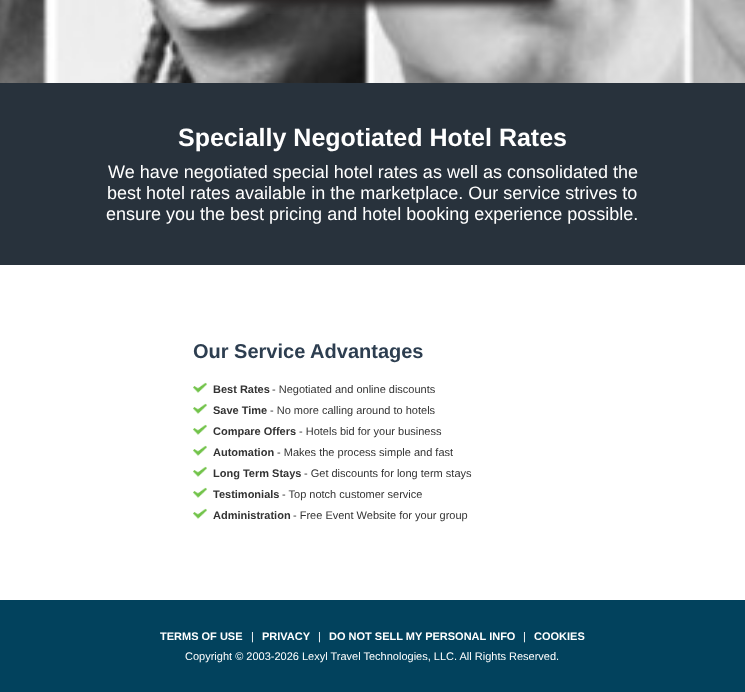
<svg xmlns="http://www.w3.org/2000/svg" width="745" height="692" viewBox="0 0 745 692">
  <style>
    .t1 { font: bold 25px Liberation Sans; fill: #fff; }
    .t2 { font: 18px Liberation Sans; fill: #fff; }
    .t3 { font: bold 20px Liberation Sans; fill: #2d3e50; }
    .t4 { font: bold 11px Liberation Sans; fill: #333; }
    .t5 { font: 11px Liberation Sans; fill: #333; }
    .t6 { font: bold 11px Liberation Sans; fill: #fff; }
    .t7 { font: 11px Liberation Sans; fill: #fff; }
  </style>
  <rect width="100%" height="100%" fill="#fff"/>
  <image x="0" y="0" width="745" height="83" href="images/1.png"/>
  <rect x="204" y="-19" width="350" height="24" rx="5" fill="#252222" filter="blur(4.5px)"/>
  <rect x="0" y="83" width="745" height="182" fill="#28323c"/>
  <text x="178" y="146" class="t1">Specially Negotiated Hotel Rates</text>
  <text x="108" y="178" class="t2">We have negotiated special hotel rates as well as consolidated the</text>
  <text x="107" y="199" class="t2">best hotel rates available in the marketplace. Our service strives to</text>
  <text x="106" y="220" class="t2">ensure you the best pricing and hotel booking experience possible.</text>
  <text x="193" y="358" class="t3">Our Service Advantages</text>
  <image x="193" y="382" width="14" height="11" href="images/2.png"/>
  <text x="213" y="393" class="t4">Best Rates</text>
  <text x="272" y="393" class="t5">- Negotiated and online discounts</text>
  <image x="193" y="403" width="14" height="11" href="images/2.png"/>
  <text x="213" y="414" class="t4">Save Time</text>
  <text x="270" y="414" class="t5">- No more calling around to hotels</text>
  <image x="193" y="424" width="14" height="11" href="images/2.png"/>
  <text x="213" y="435" class="t4">Compare Offers</text>
  <text x="299" y="435" class="t5">- Hotels bid for your business</text>
  <image x="193" y="445" width="14" height="11" href="images/2.png"/>
  <text x="213" y="456" class="t4">Automation</text>
  <text x="277" y="456" class="t5">- Makes the process simple and fast</text>
  <image x="193" y="466" width="14" height="11" href="images/2.png"/>
  <text x="213" y="477" class="t4">Long Term Stays</text>
  <text x="304" y="477" class="t5">- Get discounts for long term stays</text>
  <image x="193" y="487" width="14" height="11" href="images/2.png"/>
  <text x="213" y="498" class="t4">Testimonials</text>
  <text x="282" y="498" class="t5">- Top notch customer service</text>
  <image x="193" y="508" width="14" height="11" href="images/2.png"/>
  <text x="213" y="519" class="t4">Administration</text>
  <text x="293" y="519" class="t5">- Free Event Website for your group</text>
  <rect x="0" y="600" width="745" height="92" fill="#02425d"/>
  <text x="160" y="640" class="t6">TERMS OF USE</text>
  <text x="251" y="640" class="t7">|</text>
  <text x="262" y="640" class="t6">PRIVACY</text>
  <text x="318" y="640" class="t7">|</text>
  <text x="329" y="640" class="t6">DO NOT SELL MY PERSONAL INFO</text>
  <text x="523" y="640" class="t7">|</text>
  <text x="534" y="640" class="t6">COOKIES</text>
  <text x="185" y="660" class="t7">Copyright © 2003-2026 Lexyl Travel Technologies, LLC. All Rights Reserved.</text>
</svg>
